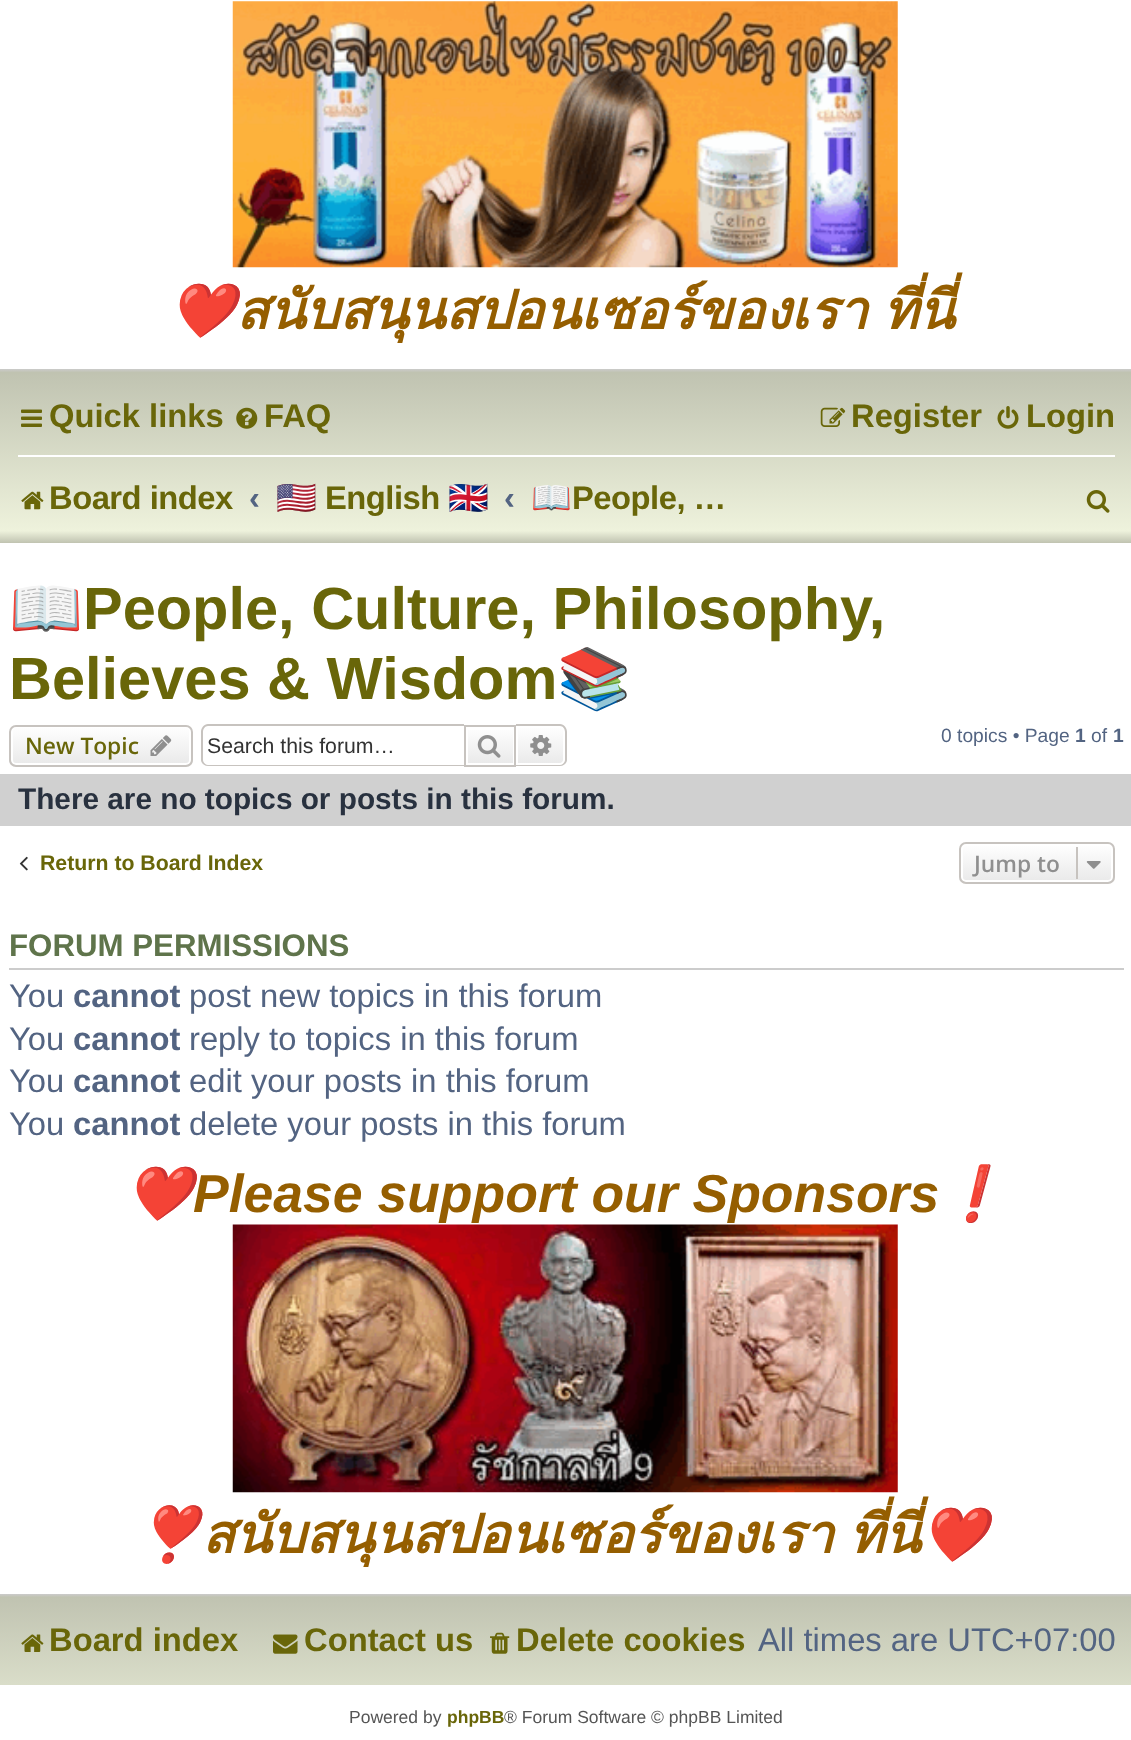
<svg xmlns="http://www.w3.org/2000/svg" width="1131" height="1740" viewBox="0 0 1131 1740">
  <style>
    .t1 { font: italic bold 53.5px Noto Color Emoji; fill: #955e00; }
    .t2 { font: italic bold 53.5px Loma; fill: #955e00; }
    .t3 { font: bold 32.75px Liberation Sans; fill: #696609; }
    .t4 { font: bold 32.75px Liberation Sans; letter-spacing: -0.5px; fill: #696609; }
    .t5 { font: bold 32.75px Liberation Sans; fill: #536482; }
    .t6 { font: bold 32.75px Noto Color Emoji; letter-spacing: -0.5px; fill: #696609; }
    .t7 { font: bold 59.5px Noto Color Emoji; fill: #696609; }
    .t8 { font: bold 59.5px Liberation Sans; fill: #696609; }
    .t9 { font: 600 22.75px Open Sans; fill: #696609; }
    .t10 { font: 21.25px Liberation Sans; fill: #333; }
    .t11 { font: 19.25px Liberation Sans; fill: #536482; }
    .t12 { font: bold 19.25px Liberation Sans; fill: #536482; }
    .t13 { font: bold 29.75px Liberation Sans; fill: #28313f; }
    .t14 { font: bold 21.25px Liberation Sans; fill: #696609; }
    .t15 { font: 600 22.75px Open Sans; fill: #8f8f8f; }
    .t16 { font: bold 31.25px Liberation Sans; fill: #5f744b; }
    .t17 { font: 32.75px Liberation Sans; fill: #536482; }
    .t18 { font: italic bold 53.5px Liberation Sans; fill: #955e00; }
    .t19 { font: 17.5px Liberation Sans; fill: #555; }
    .t20 { font: bold 17.5px Liberation Sans; fill: #696609; }
  </style>
  <defs>
    <linearGradient id="g1" gradientUnits="userSpaceOnUse" x1="566" y1="369" x2="566" y2="543"><stop offset="0" stop-color="#cbcbcb"/><stop offset="0.02" stop-color="#c0c3b1"/><stop offset="0.93" stop-color="#eef2dc"/><stop offset="1" stop-color="#c0c3b1"/></linearGradient>
    <clipPath id="clip1"><rect x="277" y="462" width="211" height="72"/></clipPath>
    <clipPath id="clip2"><rect x="532" y="462" width="210" height="72"/></clipPath>
    <clipPath id="clip3"><rect x="9" y="725" width="184" height="42" rx="7"/></clipPath>
    <linearGradient id="g2" gradientUnits="userSpaceOnUse" x1="101" y1="726" x2="101" y2="765"><stop offset="0" stop-color="#fff"/><stop offset="1" stop-color="#e9e9e9"/></linearGradient>
    <linearGradient id="g3" gradientUnits="userSpaceOnUse" x1="490" y1="726" x2="490" y2="765"><stop offset="0" stop-color="#fff"/><stop offset="1" stop-color="#e9e9e9"/></linearGradient>
    <linearGradient id="g4" gradientUnits="userSpaceOnUse" x1="541" y1="726" x2="541" y2="765"><stop offset="0" stop-color="#fff"/><stop offset="1" stop-color="#e9e9e9"/></linearGradient>
    <clipPath id="clip4"><rect x="959" y="842" width="156" height="42" rx="7"/></clipPath>
    <linearGradient id="g5" gradientUnits="userSpaceOnUse" x1="1037" y1="844" x2="1037" y2="882"><stop offset="0" stop-color="#fff"/><stop offset="1" stop-color="#e9e9e9"/></linearGradient>
    <linearGradient id="g6" gradientUnits="userSpaceOnUse" x1="566" y1="1594" x2="566" y2="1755"><stop offset="0" stop-color="#cbcbcb"/><stop offset="0.02" stop-color="#c0c3b1"/><stop offset="1" stop-color="#eef2dc"/><stop offset="1" stop-color="#c0c3b1"/></linearGradient>
  </defs>
  <rect width="100%" height="100%" fill="#fff"/>
  <image x="232" y="1" width="666" height="267" href="images/1.png"/>
  <text x="169" y="329" class="t1">❤️</text>
  <text x="236" y="329" word-spacing="-3" class="t2">สนับสนุนสปอนเซอร์ของเรา ที่นี่</text>
  <rect x="0" y="369" width="1131" height="174" fill="url(#g1)"/>
  <image x="21" y="409" width="21" height="18" href="images/2.png"/>
  <text x="49" y="427" class="t3">Quick links</text>
  <image x="236" y="407" width="22" height="22" href="images/3.png"/>
  <text x="264" y="427" class="t3">FAQ</text>
  <image x="820" y="407" width="26" height="20" href="images/4.png"/>
  <text x="851" y="427" class="t3">Register</text>
  <image x="997" y="406" width="22" height="23" href="images/5.png"/>
  <text x="1026" y="427" class="t3">Login</text>
  <rect x="18" y="455" width="1097" height="2" fill="#fff"/>
  <image x="21" y="491" width="23" height="19" href="images/6.png"/>
  <text x="49" y="509" class="t4">Board index</text>
  <text x="249" y="509" class="t5">‹</text>
  <g clip-path="url(#clip1)">
    <text x="276" y="509" class="t6">🇺🇸</text>
  </g>
  <text x="325" y="509" class="t4">English</text>
  <text x="448" y="509" class="t6">🇬🇧</text>
  <text x="504" y="509" class="t5">‹</text>
  <g clip-path="url(#clip2)">
    <text x="531" y="509" class="t6">📖</text>
  </g>
  <text x="572" y="509" class="t4">People, …</text>
  <image x="1086" y="490" width="24" height="23" href="images/7.png"/>
  <text x="9" y="629" class="t7">📖</text>
  <text x="83" y="629" class="t8">People, Culture, Philosophy,</text>
  <text x="9" y="699" class="t8">Believes &amp; Wisdom</text>
  <text x="557" y="699" class="t7">📚</text>
  <g clip-path="url(#clip3)">
    <rect x="9" y="726" width="184" height="39" fill="url(#g2)"/>
  </g>
  <rect x="12" y="727" width="178" height="37" rx="4" fill="none" stroke="#fff" stroke-width="2"/>
  <rect x="10" y="726" width="182" height="40" rx="6" fill="none" stroke="#c7c3bf" stroke-width="2"/>
  <text x="25" y="754" class="t9">New Topic</text>
  <image x="150" y="735" width="22" height="21" href="images/8.png"/>
  <path d="M208 724H464V766H208C204 766 201 763 201 760V732C201 728 204 724 208 724ZM208 726H464V765H208C205 765 203 762 203 760V732C203 729 205 726 208 726Z" fill="#c7c3bf" fill-rule="evenodd"/>
  <text x="207" y="753" class="t10">Search this forum…</text>
  <rect x="468" y="730" width="45" height="33" fill="url(#g3)"/>
  <rect x="465" y="726" width="50" height="40" fill="none" stroke="#c7c3bf" stroke-width="2"/>
  <image x="477" y="735" width="24" height="23" href="images/9.png"/>
  <path d="M517 727H560C562 727 564 729 564 731V760C564 762 562 764 560 764H517Z" fill="url(#g4)" stroke="#fff" stroke-width="2"/>
  <path d="M516 724H560C564 724 567 728 567 732V760C567 763 564 766 560 766H516ZM516 726H560C563 726 565 729 565 732V760C565 762 563 765 560 765H516Z" fill="#c7c3bf" fill-rule="evenodd"/>
  <image x="530" y="735" width="22" height="21" href="images/10.png"/>
  <text x="941" y="742" class="t11">0 topics • Page</text>
  <text x="1075" y="742" class="t12">1</text>
  <text x="1091" y="742" class="t11">of</text>
  <text x="1113" y="742" class="t12">1</text>
  <rect x="0" y="774" width="1131" height="52" fill="#d0d0d0"/>
  <text x="18" y="809" class="t13">There are no topics or posts in this forum.</text>
  <image x="19" y="856" width="9" height="15" href="images/11.png"/>
  <text x="40" y="870" class="t14">Return to Board Index</text>
  <g clip-path="url(#clip4)">
    <rect x="959" y="844" width="156" height="38" fill="url(#g5)"/>
  </g>
  <rect x="962" y="845" width="150" height="36" rx="4" fill="none" stroke="#fff" stroke-width="2"/>
  <rect x="960" y="843" width="154" height="40" rx="6" fill="none" stroke="#c7c3bf" stroke-width="2"/>
  <text x="974" y="872" class="t15">Jump to</text>
  <rect x="1076" y="847" width="2" height="32" fill="#c7c3bf"/>
  <image x="1086" y="861" width="15" height="8" href="images/12.png"/>
  <rect x="9" y="968" width="1115" height="2" fill="#ccc"/>
  <text x="9" y="956" class="t16">FORUM PERMISSIONS</text>
  <text x="9" y="1007" class="t17">You</text>
  <text x="73" y="1007" class="t5">cannot</text>
  <text x="189" y="1007" class="t17">post new topics in this forum</text>
  <text x="9" y="1050" class="t17">You</text>
  <text x="73" y="1050" class="t5">cannot</text>
  <text x="189" y="1050" class="t17">reply to topics in this forum</text>
  <text x="9" y="1092" class="t17">You</text>
  <text x="73" y="1092" class="t5">cannot</text>
  <text x="189" y="1092" class="t17">edit your posts in this forum</text>
  <text x="9" y="1135" class="t17">You</text>
  <text x="73" y="1135" class="t5">cannot</text>
  <text x="189" y="1135" class="t17">delete your posts in this forum</text>
  <text x="126" y="1212" class="t1">❤️</text>
  <text x="193" y="1212" class="t18">Please support our Sponsors</text>
  <text x="940" y="1212" class="t1">❗</text>
  <image x="232" y="1224" width="666" height="269" href="images/13.png"/>
  <text x="136" y="1553" class="t1">❣️</text>
  <text x="202" y="1553" word-spacing="-3" class="t2">สนับสนุนสปอนเซอร์ของเรา ที่นี่</text>
  <text x="921" y="1553" class="t1">❤️</text>
  <rect x="0" y="1594" width="1131" height="91" fill="url(#g6)"/>
  <image x="21" y="1634" width="23" height="18" href="images/14.png"/>
  <text x="49" y="1651" class="t3">Board index</text>
  <image x="273" y="1634" width="25" height="20" href="images/15.png"/>
  <text x="304" y="1651" class="t3">Contact us</text>
  <image x="490" y="1632" width="20" height="22" href="images/16.png"/>
  <text x="516" y="1651" class="t3">Delete cookies</text>
  <text x="758" y="1651" class="t17">All times are UTC+07:00</text>
  <text x="349" y="1723" class="t19">Powered by</text>
  <text x="447" y="1723" class="t20">phpBB</text>
  <text x="504" y="1723" class="t19">® Forum Software © phpBB Limited</text>
</svg>
